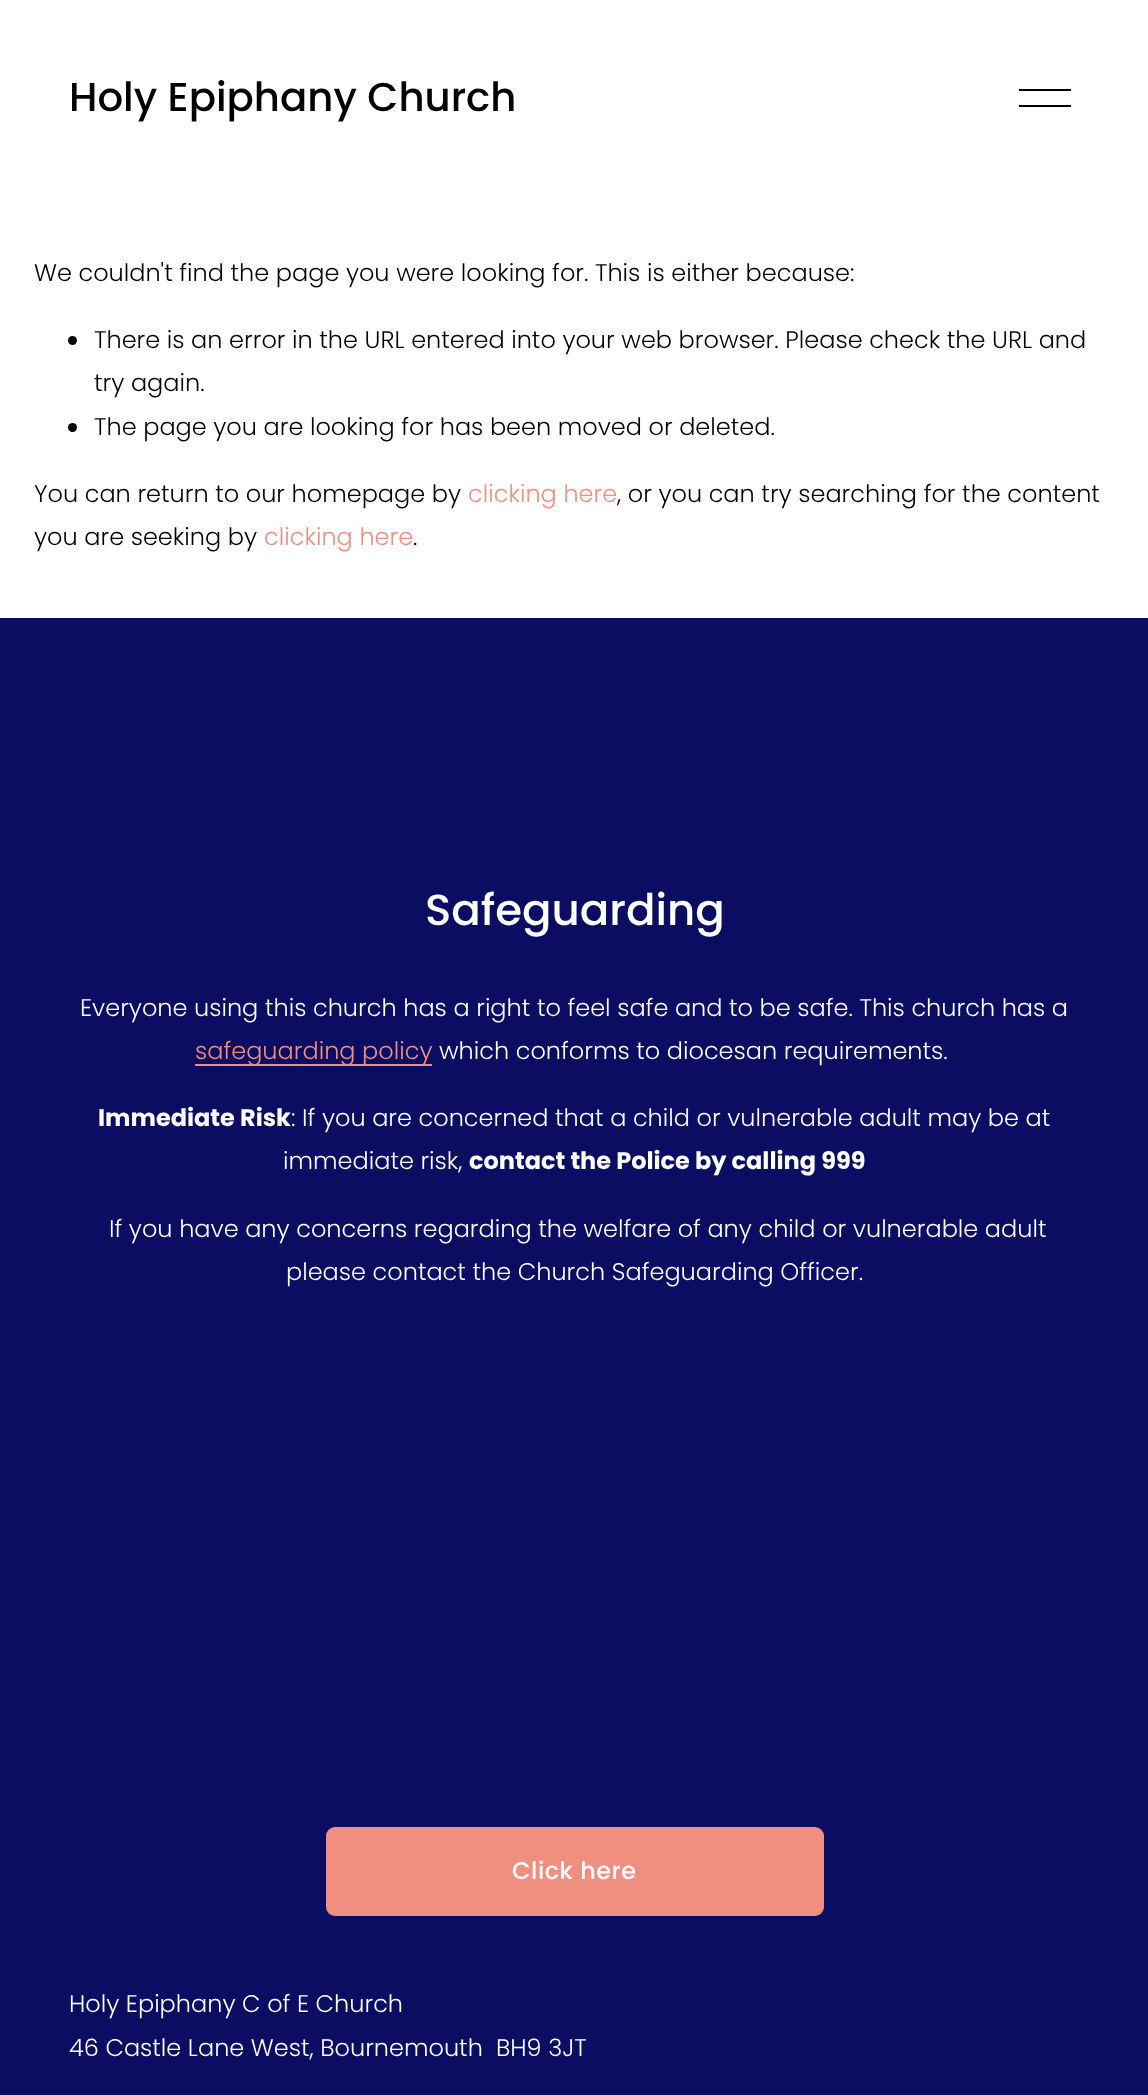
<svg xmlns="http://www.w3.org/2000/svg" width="1148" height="2095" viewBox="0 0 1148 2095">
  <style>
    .t1 { font: 500 40.25px Poppins; fill: #000; }
    .t2 { font: 300 24px Poppins; fill: #000; }
    .t3 { font: 300 24px Poppins; fill: #f08e80; }
    .t4 { font: 500 43.5px Poppins; fill: #fff; }
    .t5 { font: 300 24px Poppins; fill: #fff; }
    .t6 { font: bold 24px Poppins; fill: #fff; }
    .t7 { font: 500 24px Poppins; letter-spacing: 0.5px; fill: #fff; }
  </style>
  <rect width="100%" height="100%" fill="#fff"/>
  <text x="69" y="111" class="t1">Holy Epiphany Church</text>
  <rect x="1019" y="89" width="52" height="2" fill="#000"/>
  <rect x="1019" y="105" width="52" height="2" fill="#000"/>
  <text x="34" y="281" class="t2">We couldn't find the page you were looking for. This is either because:</text>
  <circle cx="72.5" cy="340.5" r="4.5" fill="#000"/>
  <text x="94" y="348" class="t2">There is an error in the URL entered into your web browser. Please check the URL and</text>
  <text x="94" y="391" class="t2">try again.</text>
  <circle cx="72.5" cy="427.5" r="4.5" fill="#000"/>
  <text x="94" y="435" class="t2">The page you are looking for has been moved or deleted.</text>
  <text x="34" y="502" class="t2">You can return to our homepage by</text>
  <text x="468" y="502" class="t3">clicking here</text>
  <text x="617" y="502" class="t2">, or you can try searching for the content</text>
  <text x="34" y="545" class="t2">you are seeking by</text>
  <text x="264" y="545" class="t3">clicking here</text>
  <text x="413" y="545" class="t2">.</text>
  <rect x="0" y="618" width="1148" height="1477" fill="#0b0d63"/>
  <text x="425" y="925" class="t4">Safeguarding</text>
  <text x="80" y="1016" class="t5">Everyone using this church has a right to feel safe and to be safe. This church has a</text>
  <rect x="195" y="1064" width="237" height="2" fill="#f08e80"/>
  <text x="195" y="1059" class="t3">safeguarding policy</text>
  <text x="439" y="1059" class="t5">which conforms to diocesan requirements.</text>
  <text x="98" y="1126" class="t6">Immediate Risk</text>
  <text x="291" y="1126" class="t5">: If you are concerned that a child or vulnerable adult may be at</text>
  <text x="283" y="1169" class="t5">immediate risk,</text>
  <text x="469" y="1169" class="t6">contact the Police by calling 999</text>
  <text x="109" y="1237" class="t5">If you have any concerns regarding the welfare of any child or vulnerable adult</text>
  <text x="286" y="1280" class="t5">please contact the Church Safeguarding Officer.</text>
  <rect x="326" y="1827" width="498" height="89" rx="9" fill="#f08e80"/>
  <text x="512" y="1879" class="t7">Click here</text>
  <text x="69" y="2012" class="t5">Holy Epiphany C of E Church</text>
  <text x="69" y="2056" class="t5" xml:space="preserve">46 Castle Lane West, Bournemouth  BH9 3JT</text>
</svg>
